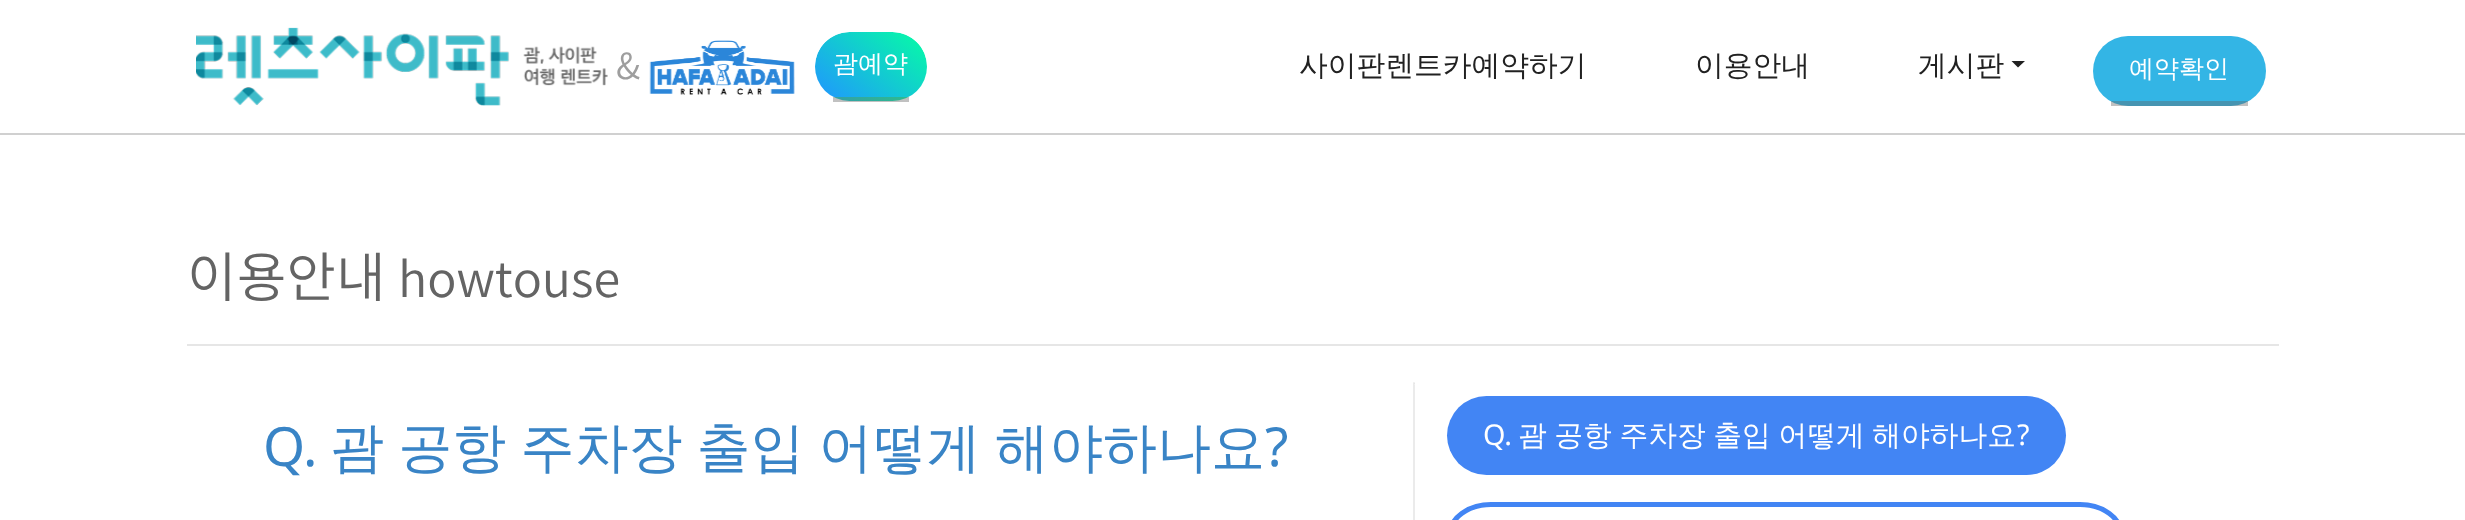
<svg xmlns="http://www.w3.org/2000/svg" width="2465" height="520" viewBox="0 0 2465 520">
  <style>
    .t1 { font: 300 36px Noto Sans KR; fill: #9e9e9e; }
    .t2 { font: 500 25px WenQuanYi Zen Hei; fill: #fff; }
    .t3 { font: 500 28.75px WenQuanYi Zen Hei; fill: #212121; }
    .t4 { font: 300 54px Noto Sans KR; fill: #646464; }
    .t5 { font: 300 48.5px Noto Sans KR; fill: #646464; }
    .t6 { font: 54px Noto Sans; fill: #3984c6; }
    .t7 { font: 500 54px WenQuanYi Zen Hei; fill: #3984c6; }
    .t8 { font: 28.75px Noto Sans; fill: #fff; }
    .t9 { font: 500 28.75px WenQuanYi Zen Hei; fill: #fff; }
  </style>
  <defs>
    <clipPath id="clip1"><rect x="815" y="32" width="112" height="69" rx="34.5"/></clipPath>
    <linearGradient id="g1" gradientUnits="userSpaceOnUse" x1="831" y1="111" x2="910" y2="17"><stop offset="0" stop-color="#2096ff"/><stop offset="1" stop-color="#05ffa3"/></linearGradient>
    <linearGradient id="g2" gradientUnits="userSpaceOnUse" x1="831" y1="176" x2="910" y2="83"><stop offset="0" stop-color="#3b82c1"/><stop offset="1" stop-color="#2bc18a"/></linearGradient>
  </defs>
  <rect width="100%" height="100%" fill="#fff"/>
  <rect x="833" y="97" width="76" height="5" fill="#c1c1c1"/>
  <rect x="0" y="133" width="2465" height="2" fill="#d0d0d0"/>
  <image x="196" y="27" width="412" height="79" href="images/1.png"/>
  <text x="616" y="79" class="t1">&amp;</text>
  <image x="649" y="40" width="146" height="55" href="images/2.png"/>
  <g clip-path="url(#clip1)">
    <path d="M849.5 32H892.5C911.5 32 927 47.5 927 66.5V97H815V66.5C815 47.5 830.5 32 849.5 32Z" fill="url(#g1)"/>
    <rect x="833" y="97" width="76" height="4" fill="url(#g2)"/>
  </g>
  <text x="833" y="72" class="t2">괌예약</text>
  <text x="1299" y="75" class="t3">사이판렌트카예약하기</text>
  <text x="1695" y="75" class="t3">이용안내</text>
  <text x="1918" y="75" class="t3">게시판</text>
  <path d="M2011.5 61H2025L2018 67.5Z" fill="#212121"/>
  <rect x="2093" y="36" width="173" height="70" rx="35" fill="#33b5e5"/>
  <rect x="2111" y="101" width="137" height="5" fill="#64646466"/>
  <text x="2129" y="77" class="t2">예약확인</text>
  <text x="187" y="297" class="t4">이용안내</text>
  <text x="398" y="297" class="t5">howtouse</text>
  <rect x="187" y="344" width="2092" height="2" fill="#e6e6e6"/>
  <text x="263" y="466" class="t6">Q.</text>
  <text x="330" y="466" word-spacing="-2" class="t7">괌 공항 주차장 출입 어떻게 해야하나요</text>
  <text x="1265" y="466" class="t6">?</text>
  <path d="M1413 382.5H1415V385Z" fill="#e6e6e6"/>
  <path d="M1413 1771V382L1415 385V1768Z" fill="#ebebeb"/>
  <rect x="1447" y="396" width="619" height="79" rx="39.5" fill="#4285f4"/>
  <text x="1483" y="445" class="t8">Q.</text>
  <text x="1518" y="445" word-spacing="-1" class="t9">괌 공항 주차장 출입 어떻게 해야하나요</text>
  <text x="2017" y="445" class="t8">?</text>
  <rect x="1449.5" y="504.5" width="672" height="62" rx="41.5" fill="none" stroke="#4285f4" stroke-width="5"/>
</svg>
